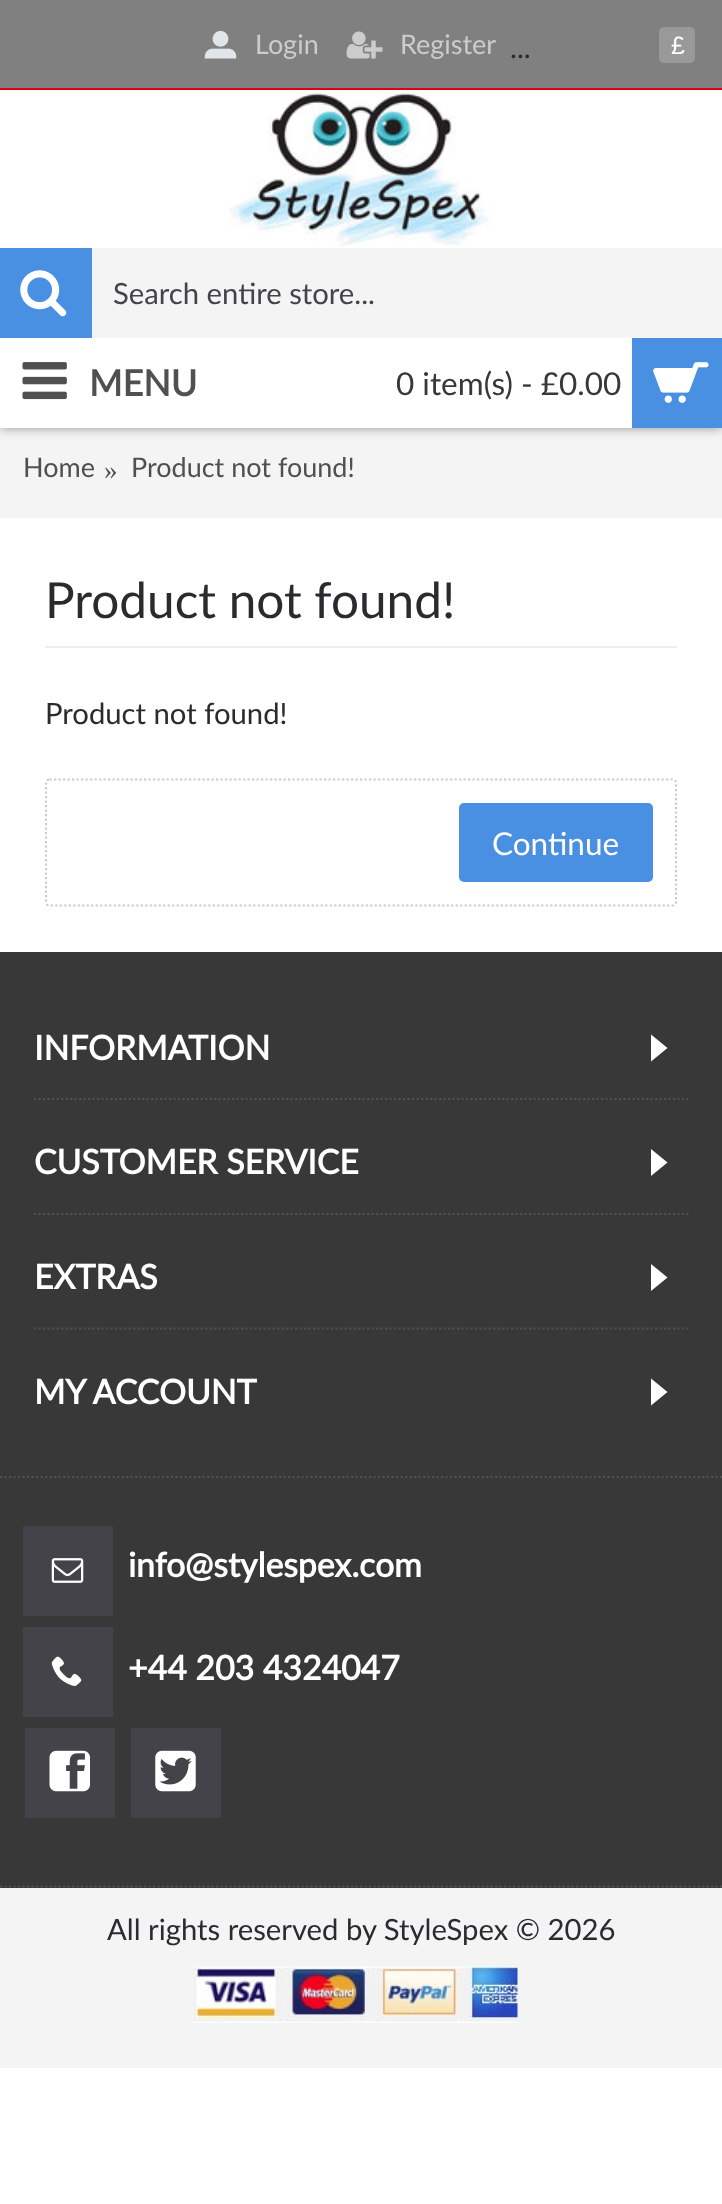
<svg xmlns="http://www.w3.org/2000/svg" width="722" height="2204" viewBox="0 0 722 2204">
  <style>
    .t1 { font: 27px Lato; fill: #ccc; }
    .t2 { font: 29.25px Lato; fill: #2a2b2e; }
    .t3 { font: 25px Liberation Sans; fill: #fff; }
    .t4 { font: 29.25px Lato; fill: #444349; }
    .t5 { font: 31.5px Lato; fill: #383838; }
    .t6 { font: bold 36px Lato; fill: #505050; }
    .t7 { font: 27px Lato; fill: #505050; }
    .t8 { font: 27px Liberation Serif; fill: #505050; }
    .t9 { font: 49.5px Lato; fill: #2a2b2e; }
    .t10 { font: 31.5px Lato; fill: #fff; }
    .t11 { font: bold 33.75px Lato; fill: #fff; }
  </style>
  <rect width="100%" height="100%" fill="#fff"/>
  <rect x="0" y="428" width="722" height="90" fill="#f4f4f4"/>
  <rect x="0" y="0" width="722" height="428" fill="#00000066" filter="blur(5.5px)"/>
  <rect x="0" y="90" width="722" height="338" fill="#fff"/>
  <rect x="0" y="0" width="722" height="88" fill="#808080"/>
  <rect x="0" y="88" width="722" height="2" fill="#dd0017"/>
  <image x="204" y="30" width="33" height="29" href="images/1.png"/>
  <text x="255" y="54" class="t1">Login</text>
  <image x="346" y="31" width="37" height="28" href="images/2.png"/>
  <text x="400" y="54" class="t1">Register</text>
  <text x="510" y="58" class="t2">...</text>
  <rect x="659" y="27" width="36" height="36" rx="5" fill="#999"/>
  <text x="671" y="54" class="t3">£</text>
  <image x="230" y="90" width="263" height="157" href="images/3.png"/>
  <rect x="0" y="248" width="92" height="90" fill="#4a90e2"/>
  <image x="20" y="270" width="47" height="47" href="images/4.png"/>
  <rect x="92" y="248" width="630" height="90" fill="#f4f4f4"/>
  <text x="113" y="304" class="t4">Search entire store...</text>
  <text x="396" y="395" class="t5">0 item(s) - £0.00</text>
  <rect x="632" y="338" width="90" height="90" fill="#4a90e2"/>
  <image x="653" y="362" width="56" height="41" href="images/5.png"/>
  <image x="22" y="362" width="45" height="38" href="images/6.png"/>
  <text x="89" y="396" class="t6">MENU</text>
  <text x="23" y="477" class="t7">Home</text>
  <text x="104" y="479" class="t8">»</text>
  <text x="131" y="477" class="t7">Product not found!</text>
  <rect x="45" y="646" width="632" height="2" fill="#eee"/>
  <text x="45" y="618" class="t9">Product not found!</text>
  <text x="45" y="724" class="t2">Product not found!</text>
  <path d="M49.5 779.5H673C674.5 779.5 676 781 676 783V902C676 904 674.5 905.5 673 905.5H49.5C47.5 905.5 46 904 46 902V783C46 781 47.5 779.5 49.5 779.5Z" fill="none" stroke="#ccc" stroke-width="2.2" stroke-dasharray="2.25 2.25"/>
  <rect x="459" y="803" width="194" height="79" rx="5" fill="#4a90e2"/>
  <text x="492" y="855" class="t10">Continue</text>
  <rect x="0" y="952" width="722" height="936" fill="#383838"/>
  <path d="M34 1099H688.5" fill="none" stroke="#505050" stroke-width="2.2" stroke-dasharray="2.25 2.25"/>
  <text x="34" y="1060" class="t11">INFORMATION</text>
  <path d="M651 1034.5V1061.5L667.5 1048Z" fill="#fff"/>
  <path d="M34 1214H688.5" fill="none" stroke="#505050" stroke-width="2.2" stroke-dasharray="2.25 2.25"/>
  <text x="34" y="1174" class="t11">CUSTOMER SERVICE</text>
  <path d="M651 1149V1176L667.5 1162.5Z" fill="#fff"/>
  <path d="M34 1328.5H688.5" fill="none" stroke="#505050" stroke-width="2.2" stroke-dasharray="2.25 2.25"/>
  <text x="34" y="1289" class="t11">EXTRAS</text>
  <path d="M651 1264V1291L667.5 1277.5Z" fill="#fff"/>
  <text x="34" y="1404" class="t11">MY ACCOUNT</text>
  <path d="M651 1378.5V1405.5L667.5 1392Z" fill="#fff"/>
  <path d="M0 1477H722" fill="none" stroke="#505050" stroke-width="2.2" stroke-dasharray="2.25 2.25"/>
  <path d="M0 1886.5H722" fill="none" stroke="#505050" stroke-width="2.2" stroke-dasharray="2.25 2.25"/>
  <rect x="23" y="1526" width="90" height="90" fill="#444349"/>
  <image x="51" y="1558" width="33" height="25" href="images/7.png"/>
  <text x="128" y="1577" class="t11">info@stylespex.com</text>
  <rect x="23" y="1627" width="90" height="90" fill="#444349"/>
  <image x="51" y="1656" width="31" height="31" href="images/8.png"/>
  <text x="128" y="1680" class="t11">+44 203 4324047</text>
  <rect x="25" y="1728" width="90" height="90" fill="#444349"/>
  <image x="49" y="1750" width="41" height="42" href="images/9.png"/>
  <rect x="131" y="1728" width="90" height="90" fill="#444349"/>
  <image x="155" y="1750" width="41" height="42" href="images/10.png"/>
  <rect x="0" y="1888" width="722" height="180" fill="#f4f4f4"/>
  <text x="107" y="1940" class="t2">All rights reserved by StyleSpex © 2026</text>
  <image x="193" y="1966" width="325" height="57" href="images/11.png"/>
</svg>
